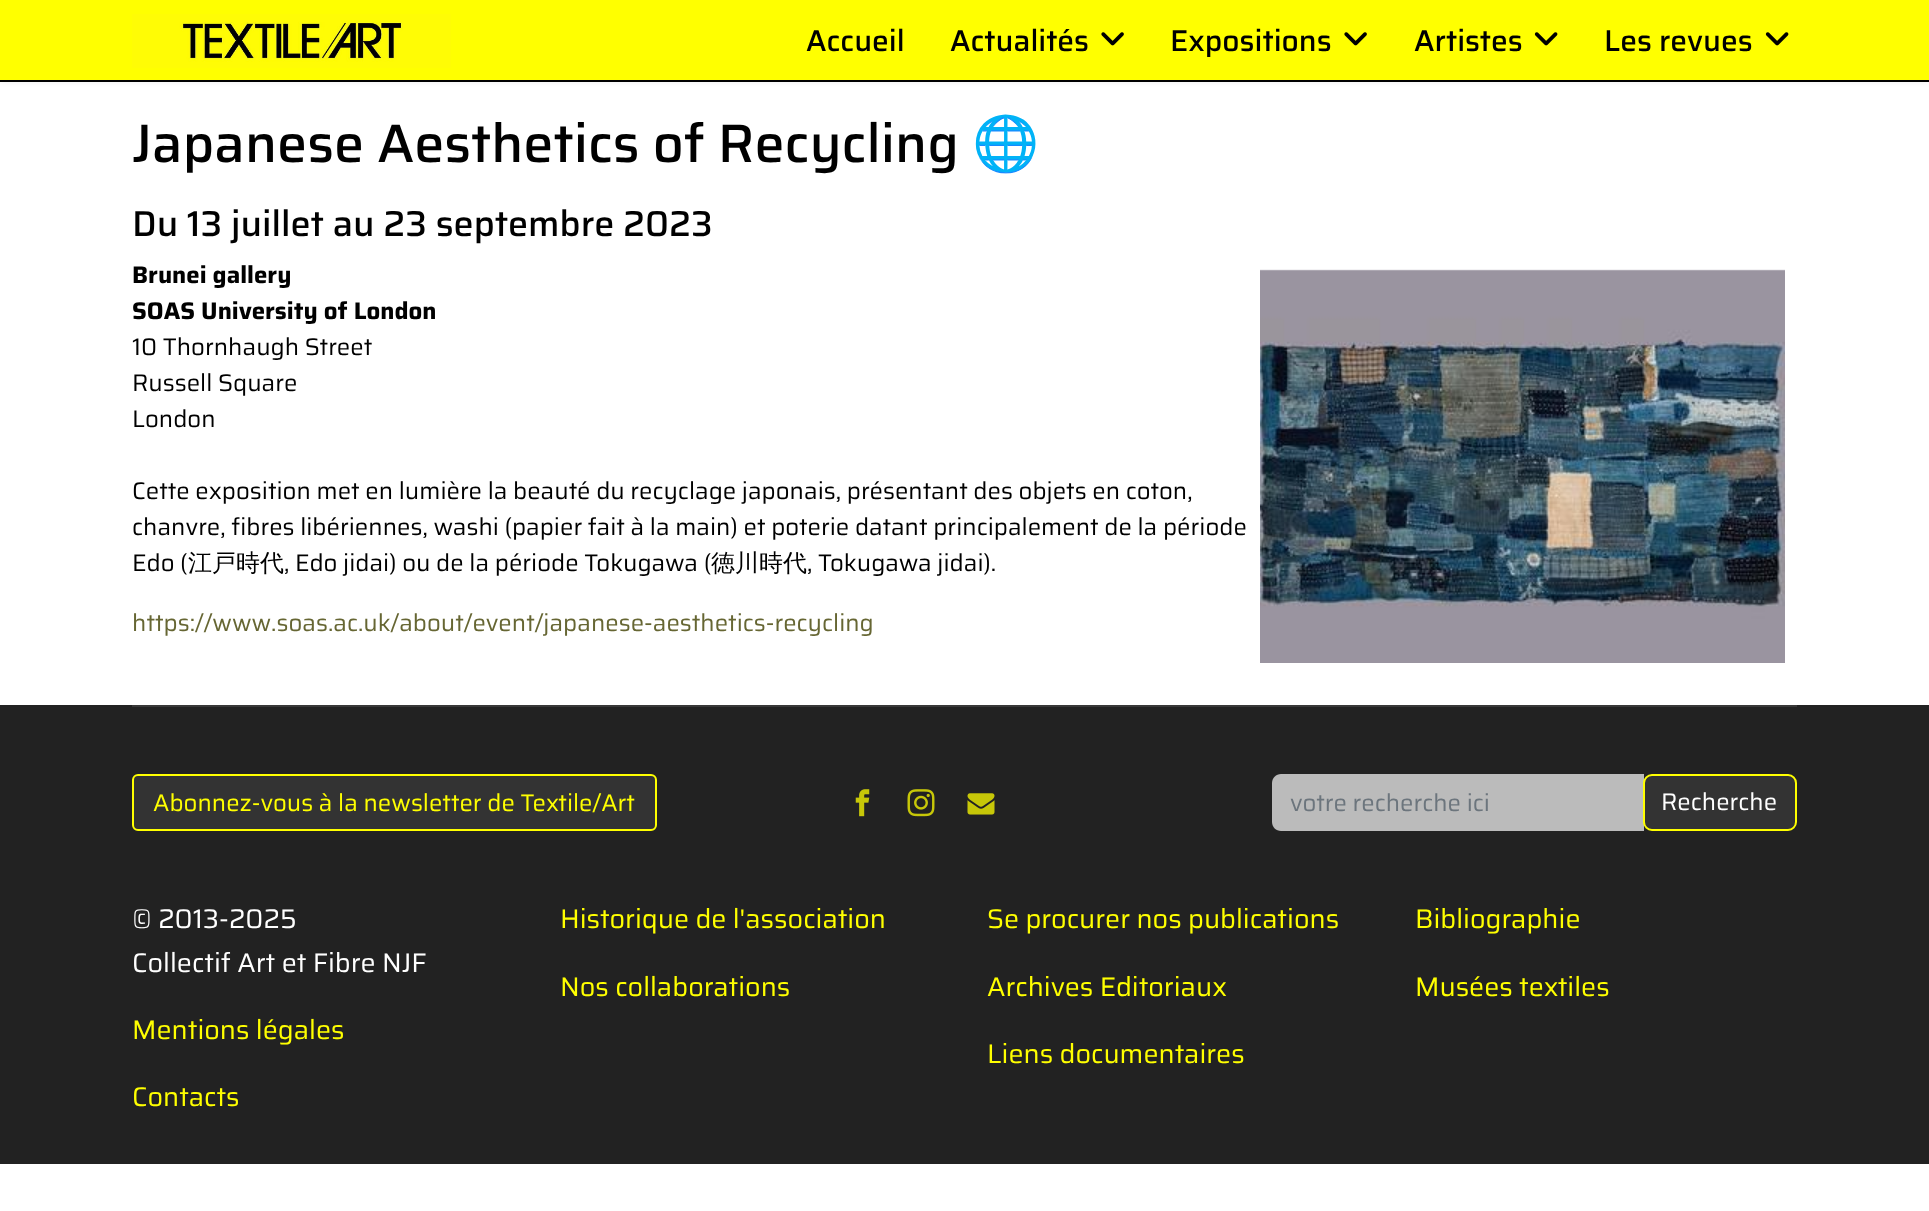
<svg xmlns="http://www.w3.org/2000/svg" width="1929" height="1211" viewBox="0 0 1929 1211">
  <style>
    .t1 { font: 500 30px Saira; fill: #000; }
    .t2 { font: 500 54px Saira; fill: #000; }
    .t3 { font: 54px Noto Color Emoji; fill: #000; }
    .t4 { font: 500 36px Saira; fill: #000; }
    .t5 { font: bold 24px Saira; fill: #000; }
    .t6 { font: 24px Saira; fill: #000; }
    .t7 { font: 500 24px WenQuanYi Zen Hei; fill: #000; }
    .t8 { font: 24px Saira; fill: #663; }
    .t9 { font: 24px Saira; fill: #ff0; }
    .t10 { font: 24px Saira; fill: #6c757d; }
    .t11 { font: 24px Saira; fill: #fff; }
    .t12 { font: 27px Saira; fill: #fff; }
    .t13 { font: 27px Saira; fill: #ff0; }
  </style>
  <rect width="100%" height="100%" fill="#fff"/>
  <rect x="0" y="0" width="1929" height="81" fill="#0000001a" filter="blur(3px)"/>
  <rect x="0" y="0" width="1929" height="80" fill="#ff0"/>
  <rect x="0" y="80" width="1929" height="2" fill="#000"/>
  <image x="132" y="14" width="319" height="54" href="images/1.png"/>
  <text x="806" y="51" class="t1">Accueil</text>
  <text x="950" y="51" class="t1">Actualités</text>
  <image x="1101" y="32" width="23" height="14" href="images/2.png"/>
  <text x="1170" y="51" class="t1">Expositions</text>
  <image x="1344" y="32" width="23" height="14" href="images/2.png"/>
  <text x="1414" y="51" class="t1">Artistes</text>
  <image x="1534" y="32" width="24" height="14" href="images/3.png"/>
  <text x="1604" y="51" class="t1">Les revues</text>
  <image x="1765" y="32" width="24" height="14" href="images/3.png"/>
  <text x="132" y="162" class="t2">Japanese Aesthetics of Recycling</text>
  <text x="972" y="162" class="t3">🌐</text>
  <text x="132" y="236" class="t4">Du 13 juillet au 23 septembre 2023</text>
  <text x="132" y="283" class="t5">Brunei gallery</text>
  <image x="1260" y="269" width="525" height="394" href="images/4.png"/>
  <text x="132" y="319" class="t5">SOAS University of London</text>
  <text x="132" y="355" class="t6">10 Thornhaugh Street</text>
  <text x="132" y="391" class="t6">Russell Square</text>
  <text x="132" y="427" class="t6">London</text>
  <text x="132" y="499" class="t6">Cette exposition met en lumière la beauté du recyclage japonais, présentant des objets en coton,</text>
  <text x="132" y="535" class="t6">chanvre, fibres libériennes, washi (papier fait à la main) et poterie datant principalement de la période</text>
  <text x="132" y="571" class="t6">Edo (</text>
  <text x="188" y="571" class="t7">江戸時代</text>
  <text x="284" y="571" class="t6">, Edo jidai) ou de la période Tokugawa (</text>
  <text x="711" y="571" class="t7">徳川時代</text>
  <text x="807" y="571" class="t6">, Tokugawa jidai).</text>
  <text x="132" y="631" class="t8">https://www.soas.ac.uk/about/event/japanese-aesthetics-recycling</text>
  <rect x="0" y="705" width="1929" height="459" fill="#222"/>
  <rect x="132" y="705" width="1665" height="2" fill="#383838"/>
  <rect x="133" y="775" width="523" height="55" rx="5" fill="#333" stroke="#ff0" stroke-width="2"/>
  <text x="153" y="811" class="t9">Abonnez-vous à la newsletter de Textile/Art</text>
  <image x="855" y="789" width="15" height="28" href="images/5.png"/>
  <image x="907" y="789" width="28" height="28" href="images/6.png"/>
  <image x="967" y="793" width="28" height="22" href="images/7.png"/>
  <path d="M1281 774H1644V831H1281C1276 831 1272 827 1272 822V783C1272 778 1276 774 1281 774Z" fill="#bbb"/>
  <text x="1290" y="811" class="t10">votre recherche ici</text>
  <rect x="1644" y="775" width="152" height="55" rx="8" fill="#333" stroke="#ff0" stroke-width="2"/>
  <text x="1661" y="810" class="t11">Recherche</text>
  <text x="132" y="928" class="t12">© 2013-2025</text>
  <text x="132" y="972" class="t12">Collectif Art et Fibre NJF</text>
  <text x="132" y="1039" class="t13">Mentions légales</text>
  <text x="132" y="1106" class="t13">Contacts</text>
  <text x="560" y="928" class="t13">Historique de l'association</text>
  <text x="560" y="996" class="t13">Nos collaborations</text>
  <text x="987" y="928" class="t13">Se procurer nos publications</text>
  <text x="987" y="996" class="t13">Archives Editoriaux</text>
  <text x="987" y="1063" class="t13">Liens documentaires</text>
  <text x="1415" y="928" class="t13">Bibliographie</text>
  <text x="1415" y="996" class="t13">Musées textiles</text>
</svg>
